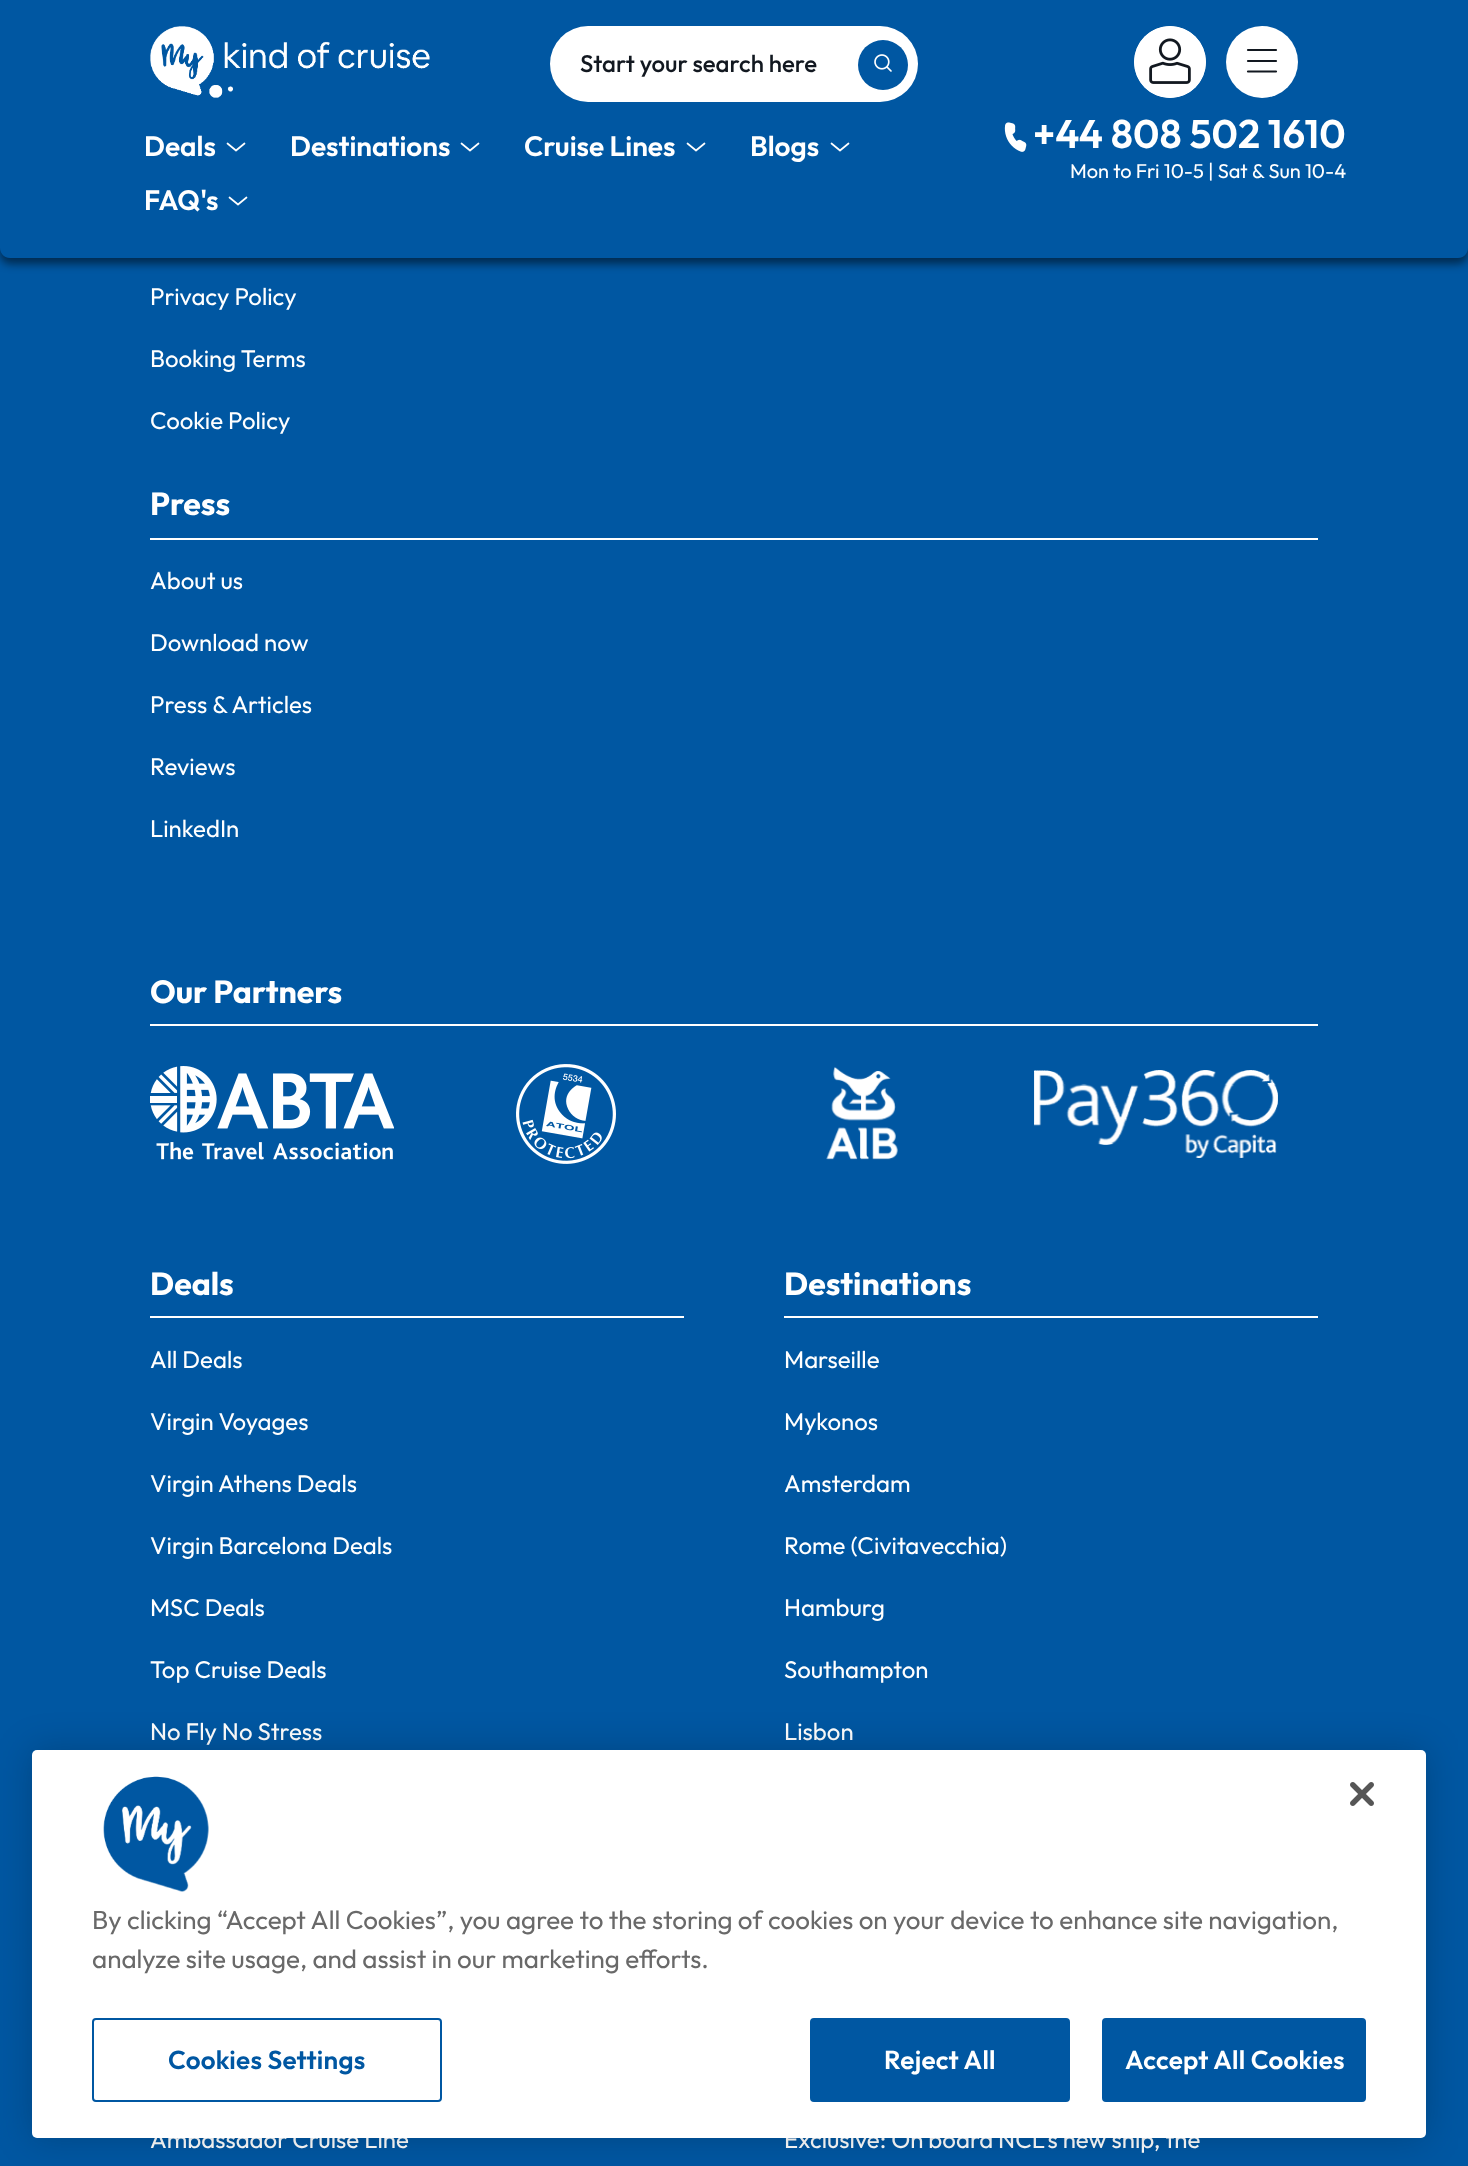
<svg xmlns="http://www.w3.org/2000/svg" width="1468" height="2166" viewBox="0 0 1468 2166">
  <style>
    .t1 { font: 500 24px Outfit; fill: #121820; }
    .t2 { font: 600 28px Outfit; fill: #fff; }
    .t3 { font: 600 40px Outfit; fill: #fff; }
    .t4 { font: 20px Outfit; fill: #fff; }
    .t5 { font: 24px Outfit; fill: #fff; }
    .t6 { font: bold 32px Outfit; fill: #fff; }
    .t7 { font: 26px Outfit; fill: #696969; }
    .t8 { font: 600 26px Outfit; letter-spacing: 0.25px; fill: #0057a2; }
    .t9 { font: 600 26px Outfit; letter-spacing: 0.25px; fill: #fff; }
  </style>
  <rect width="100%" height="100%" fill="#0057a2"/>
  <rect x="0" y="6" width="1468" height="258" rx="10" fill="#00000080" filter="blur(4px)"/>
  <path d="M0 0H1468V248C1468 253.5 1463.5 258 1458 258H10C4.5 258 0 253.5 0 248Z" fill="#0057a2"/>
  <image x="150" y="26" width="280" height="72" href="images/1.png"/>
  <rect x="550" y="26" width="368" height="76" rx="38" fill="#fff"/>
  <text x="580" y="72" class="t1">Start your search here</text>
  <circle cx="883" cy="65" r="25" fill="#0057a2"/>
  <image x="874" y="54" width="18" height="18" href="images/2.png"/>
  <circle cx="1170" cy="62" r="36" fill="#fff"/>
  <image x="1134" y="26" width="72" height="72" href="images/3.png"/>
  <circle cx="1262" cy="62" r="36" fill="#fff"/>
  <path d="M1248 50H1276M1248 61H1276M1248 71.5H1276" fill="none" stroke="#121820" stroke-width="2.2" stroke-linecap="round"/>
  <text x="144" y="156" class="t2">Deals</text>
  <path d="M244.5 143.5L236 150.5L227.5 143.5" fill="none" stroke="#fff" stroke-width="1.7" stroke-linecap="round" stroke-linejoin="round"/>
  <text x="290" y="156" class="t2">Destinations</text>
  <path d="M478.5 143.5L470 150.5L461.5 143.5" fill="none" stroke="#fff" stroke-width="1.7" stroke-linecap="round" stroke-linejoin="round"/>
  <text x="524" y="156" class="t2">Cruise Lines</text>
  <path d="M704.5 143.5L696 150.5L687.5 143.5" fill="none" stroke="#fff" stroke-width="1.7" stroke-linecap="round" stroke-linejoin="round"/>
  <text x="750" y="156" class="t2">Blogs</text>
  <path d="M848.5 143.5L840 150.5L831.5 143.5" fill="none" stroke="#fff" stroke-width="1.7" stroke-linecap="round" stroke-linejoin="round"/>
  <text x="144" y="210" class="t2">FAQ's</text>
  <path d="M246.5 197.5L238 204.5L229.5 197.5" fill="none" stroke="#fff" stroke-width="1.7" stroke-linecap="round" stroke-linejoin="round"/>
  <image x="1004" y="122" width="23" height="30" href="images/4.png"/>
  <text x="1033" y="148" class="t3">+44 808 502 1610</text>
  <text x="1070" y="178" class="t4">Mon to Fri 10-5 | Sat &amp; Sun 10-4</text>
  <text x="150" y="305" class="t5">Privacy Policy</text>
  <text x="150" y="367" class="t5">Booking Terms</text>
  <text x="150" y="429" class="t5">Cookie Policy</text>
  <text x="150" y="515" class="t6">Press</text>
  <rect x="150" y="538" width="1168" height="2" fill="#fff"/>
  <text x="150" y="589" class="t5">About us</text>
  <text x="150" y="651" class="t5">Download now</text>
  <text x="150" y="713" class="t5">Press &amp; Articles</text>
  <text x="150" y="775" class="t5">Reviews</text>
  <text x="150" y="837" class="t5">LinkedIn</text>
  <text x="150" y="1003" class="t6">Our Partners</text>
  <rect x="150" y="1024" width="1168" height="2" fill="#fff"/>
  <image x="150" y="1066" width="244" height="94" href="images/5.png"/>
  <image x="516" y="1064" width="100" height="100" href="images/6.png"/>
  <image x="826" y="1067" width="72" height="93" href="images/7.png"/>
  <image x="1034" y="1070" width="244" height="88" href="images/8.png"/>
  <text x="150" y="1295" class="t6">Deals</text>
  <rect x="150" y="1316" width="534" height="2" fill="#fff"/>
  <text x="150" y="1368" class="t5">All Deals</text>
  <text x="150" y="1430" class="t5">Virgin Voyages</text>
  <text x="150" y="1492" class="t5">Virgin Athens Deals</text>
  <text x="150" y="1554" class="t5">Virgin Barcelona Deals</text>
  <text x="150" y="1616" class="t5">MSC Deals</text>
  <text x="150" y="1678" class="t5">Top Cruise Deals</text>
  <text x="150" y="1740" class="t5">No Fly No Stress</text>
  <text x="784" y="1295" class="t6">Destinations</text>
  <rect x="784" y="1316" width="534" height="2" fill="#fff"/>
  <text x="784" y="1368" class="t5">Marseille</text>
  <text x="784" y="1430" class="t5">Mykonos</text>
  <text x="784" y="1492" class="t5">Amsterdam</text>
  <text x="784" y="1554" class="t5">Rome (Civitavecchia)</text>
  <text x="784" y="1616" class="t5">Hamburg</text>
  <text x="784" y="1678" class="t5">Southampton</text>
  <text x="784" y="1740" class="t5">Lisbon</text>
  <text x="150" y="2148" class="t5">Ambassador Cruise Line</text>
  <text x="784" y="2148" class="t5">Exclusive: On board NCL's new ship, the</text>
  <rect x="32" y="1750" width="1394" height="388" rx="5" fill="#00000033" filter="blur(18px)"/>
  <rect x="32" y="1750" width="1394" height="388" rx="5" fill="#fff"/>
  <image x="1350" y="1782" width="24" height="24" href="images/9.png"/>
  <image x="103" y="1776" width="106" height="116" href="images/10.png"/>
  <text x="92" y="1929" class="t7">By clicking “Accept All Cookies”, you agree to the storing of cookies on your device to enhance site navigation,</text>
  <text x="92" y="1968" class="t7">analyze site usage, and assist in our marketing efforts.</text>
  <rect x="93" y="2019" width="348" height="82" rx="3" fill="none" stroke="#0057a2" stroke-width="2"/>
  <text x="168" y="2069" class="t8">Cookies Settings</text>
  <rect x="811" y="2019" width="258" height="82" rx="3" fill="#0057a2" stroke="#0057a2" stroke-width="2"/>
  <text x="884" y="2069" class="t9">Reject All</text>
  <rect x="1103" y="2019" width="262" height="82" rx="3" fill="#0057a2" stroke="#0057a2" stroke-width="2"/>
  <text x="1125" y="2069" class="t9">Accept All Cookies</text>
</svg>
